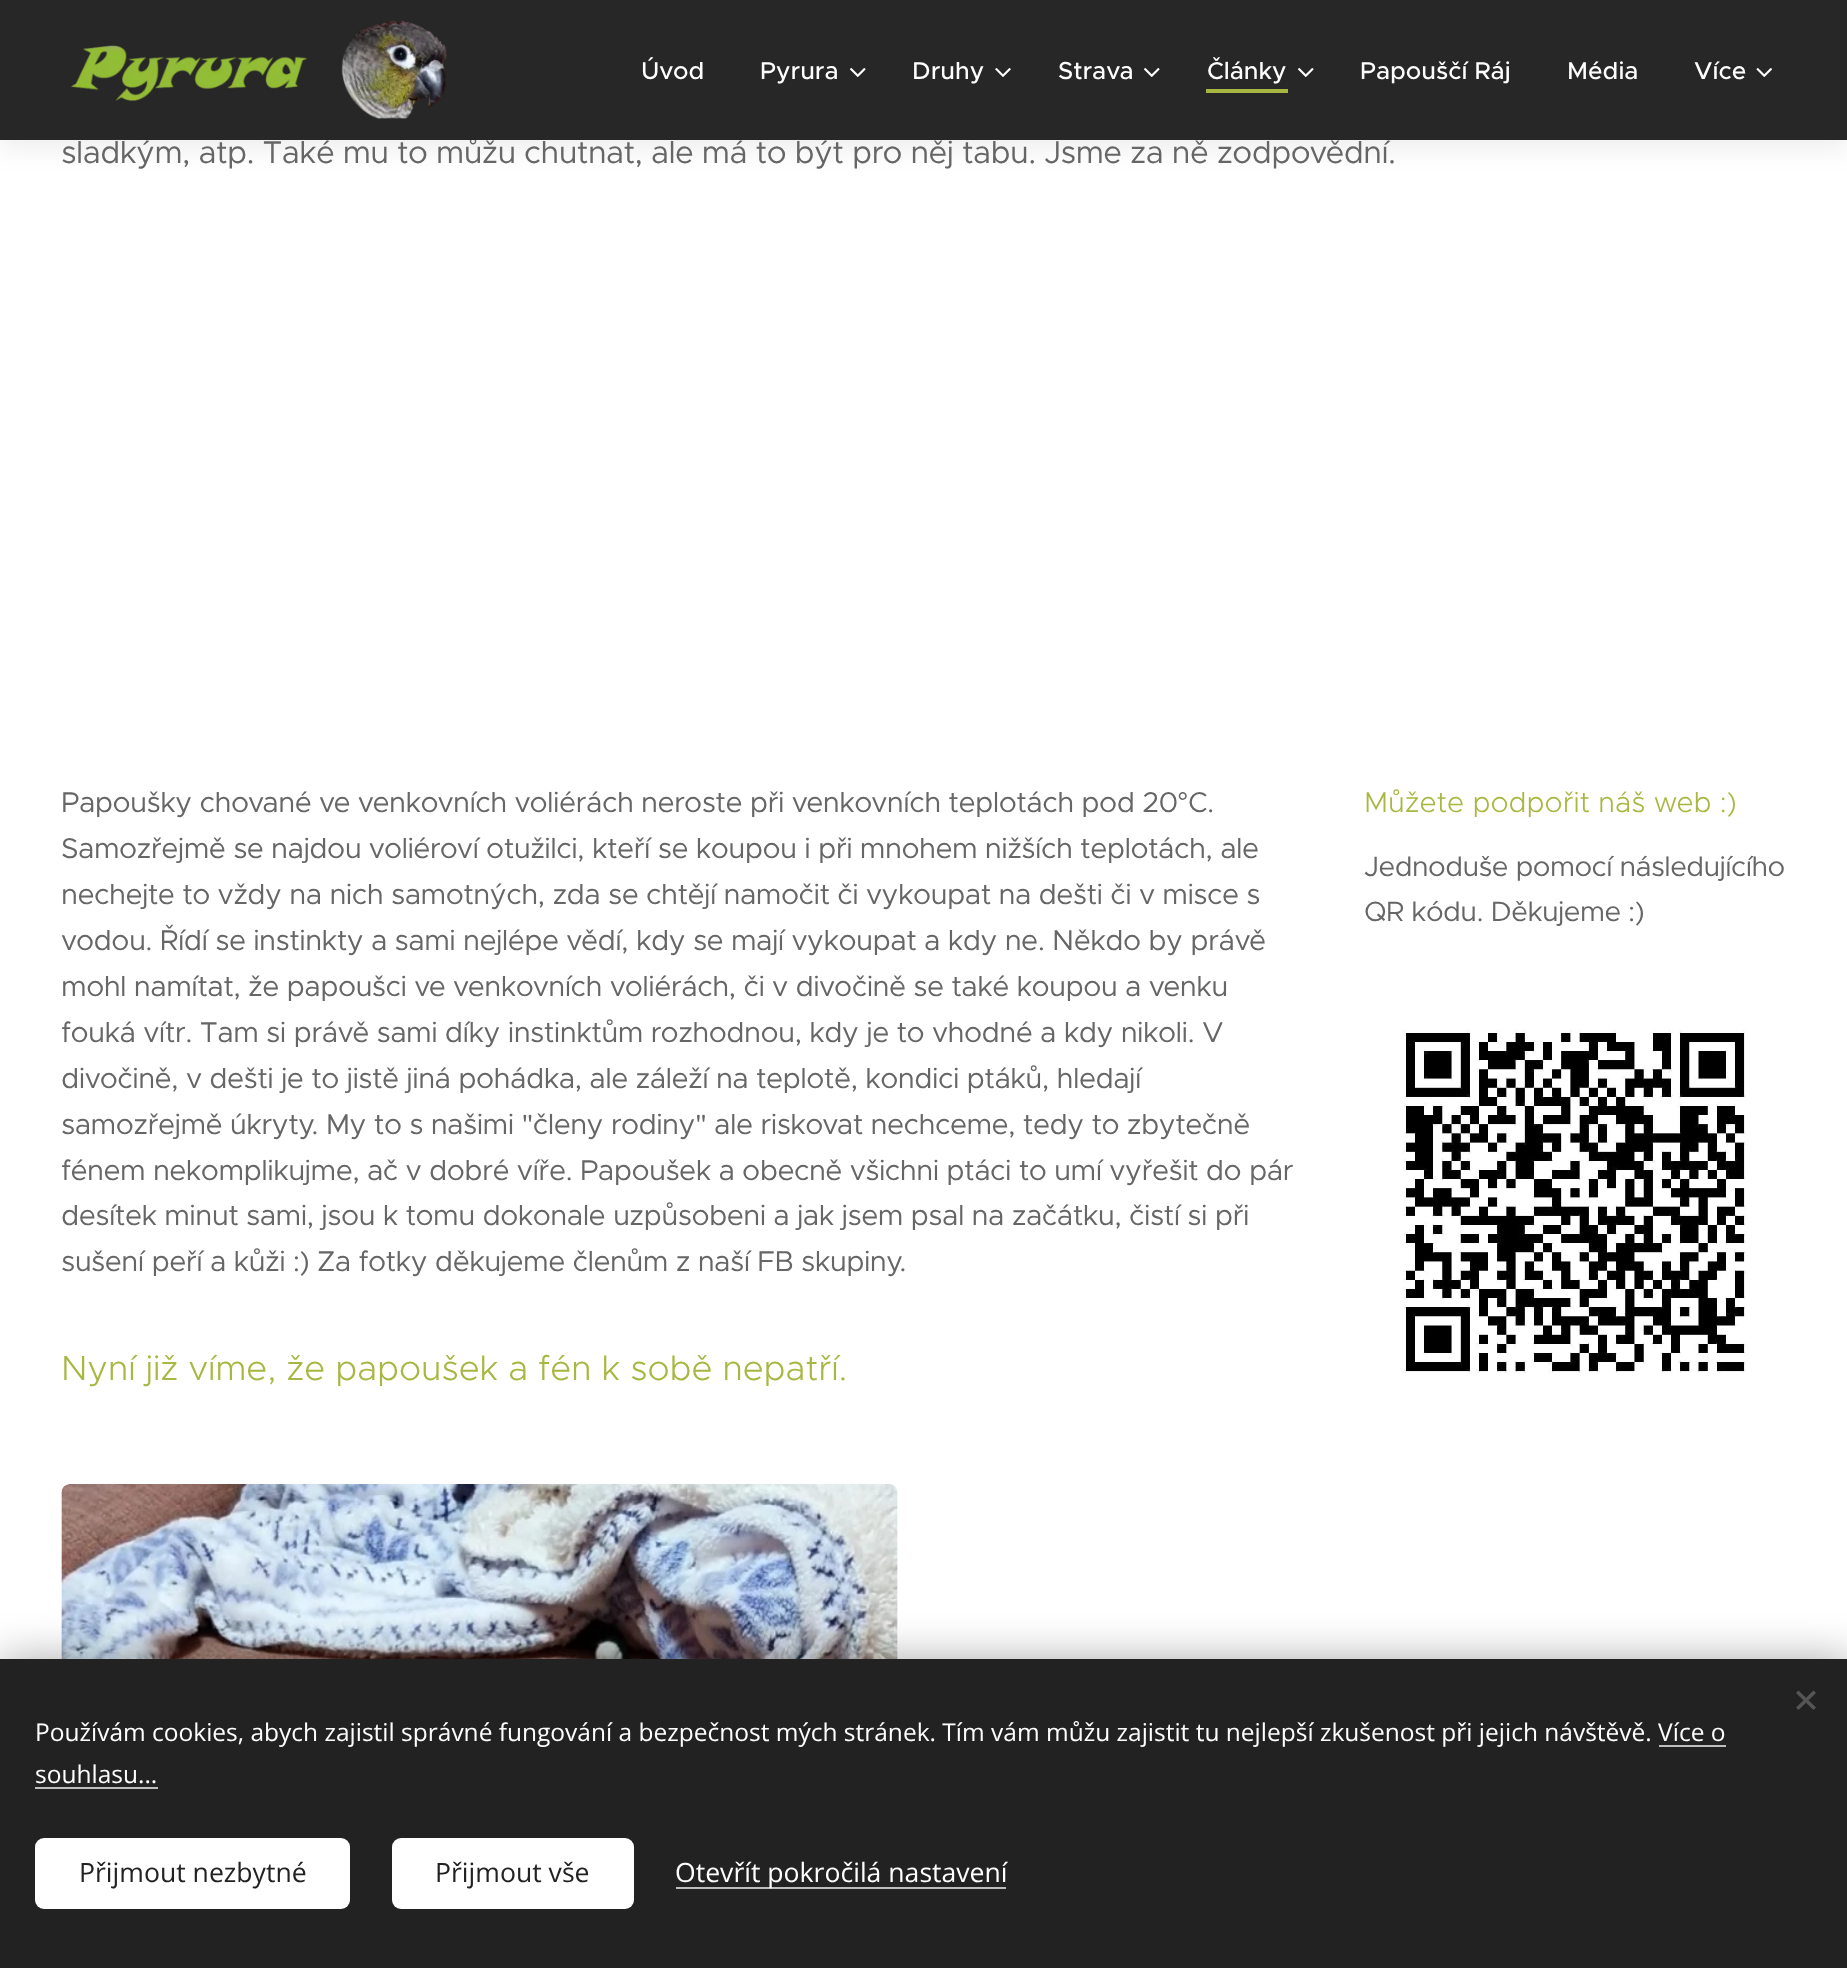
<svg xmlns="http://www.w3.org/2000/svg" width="1847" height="1968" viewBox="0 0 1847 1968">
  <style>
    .t1 { font: 31.5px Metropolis; letter-spacing: -0.55px; fill: #666; }
    .t2 { font: 500 24.5px Metropolis; fill: #fff; }
    .t3 { font: 28.7px Metropolis; letter-spacing: -0.55px; fill: #666; }
    .t4 { font: 28.7px Liberation Sans; letter-spacing: -0.55px; fill: #666; }
    .t5 { font: 300 35px Metropolis; fill: #a8b741; }
    .t6 { font: 300 28.7px Metropolis; fill: #a8b741; }
    .t7 { font: 28px Metropolis; letter-spacing: -0.55px; fill: #666; }
    .t8 { font: 24.5px Open Sans; fill: #fff; }
    .t9 { font: 26.6px Open Sans; fill: #222; }
    .t10 { font: 26.6px Open Sans; fill: #fff; }
  </style>
  <rect width="100%" height="100%" fill="#fff"/>
  <rect x="0" y="9" width="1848" height="140" fill="#00000012" filter="blur(13px)"/>
  <text x="61" y="163" class="t1">sladkým, atp. Také mu to můžu chutnat, ale má to být pro něj tabu. Jsme za ně zodpovědní.</text>
  <rect x="0" y="0" width="1847" height="140" fill="#272727"/>
  <image x="71" y="20" width="376" height="99" href="images/1.png"/>
  <text x="641" y="79" class="t2">Úvod</text>
  <text x="760" y="79" class="t2">Pyrura</text>
  <image x="850" y="68" width="16" height="9" href="images/2.png"/>
  <text x="912" y="79" class="t2">Druhy</text>
  <image x="995" y="68" width="16" height="9" href="images/3.png"/>
  <text x="1058" y="79" class="t2">Strava</text>
  <image x="1144" y="68" width="16" height="9" href="images/2.png"/>
  <text x="1207" y="79" class="t2">Články</text>
  <rect x="1206" y="89" width="82" height="4" fill="#a8b741"/>
  <image x="1298" y="68" width="16" height="9" href="images/2.png"/>
  <text x="1360" y="79" class="t2">Papouščí Ráj</text>
  <text x="1567" y="79" class="t2">Média</text>
  <text x="1694" y="79" class="t2">Více</text>
  <image x="1756" y="68" width="16" height="9" href="images/4.png"/>
  <text x="61" y="812" class="t3">Papoušky chované ve venkovních voliérách neroste při venkovních teplotách pod 20</text>
  <text x="1177" y="812" class="t4">°</text>
  <text x="1188" y="812" class="t3">C.</text>
  <text x="61" y="858" class="t3">Samozřejmě se najdou voliéroví otužilci, kteří se koupou i při mnohem nižších teplotách, ale</text>
  <text x="61" y="904" class="t3">nechejte to vždy na nich samotných, zda se chtějí namočit či vykoupat na dešti či v misce s</text>
  <text x="61" y="950" class="t3">vodou. Řídí se instinkty a sami nejlépe vědí, kdy se mají vykoupat a kdy ne. Někdo by právě</text>
  <text x="61" y="996" class="t3">mohl namítat, že papoušci ve venkovních voliérách, či v divočině se také koupou a venku</text>
  <text x="61" y="1042" class="t3">fouká vítr. Tam si právě sami díky instinktům rozhodnou, kdy je to vhodné a kdy nikoli. V</text>
  <text x="61" y="1088" class="t3">divočině, v dešti je to jistě jiná pohádka, ale záleží na teplotě, kondici ptáků, hledají</text>
  <text x="61" y="1134" class="t3">samozřejmě úkryty. My to s našimi "členy rodiny" ale riskovat nechceme, tedy to zbytečně</text>
  <text x="61" y="1180" class="t3">fénem nekomplikujme, ač v dobré víře. Papoušek a obecně všichni ptáci to umí vyřešit do pár</text>
  <text x="61" y="1225" class="t3">desítek minut sami, jsou k tomu dokonale uzpůsobeni a jak jsem psal na začátku, čistí si při</text>
  <text x="61" y="1271" class="t3">sušení peří a kůži :) Za fotky děkujeme členům z naší FB skupiny.</text>
  <text x="61" y="1380" class="t5">Nyní již víme, že papoušek a fén k sobě nepatří.</text>
  <text x="1364" y="812" class="t6">Můžete podpořit náš web :)</text>
  <text x="1364" y="876" class="t7">Jednoduše pomocí následujícího</text>
  <text x="1364" y="921" class="t7">QR kódu. Děkujeme :)</text>
  <image x="1402" y="1029" width="345" height="345" href="images/5.png"/>
  <image x="61" y="1484" width="837" height="175" href="images/6.png"/>
  <rect x="0" y="1659" width="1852" height="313" fill="#00000054" filter="blur(22px)"/>
  <rect x="0" y="1659" width="1847" height="309" fill="#222"/>
  <path d="M1796 1707.5L1813.5 1690.5L1816 1693L1798.5 1710Z" fill="#555"/>
  <path d="M1798.5 1690.5L1816 1707.5L1813.5 1710L1796 1693Z" fill="#555"/>
  <text x="35" y="1741" class="t8">Používám cookies, abych zajistil správné fungování a bezpečnost mých stránek. Tím vám můžu zajistit tu nejlepší zkušenost při jejich návštěvě. Více o</text>
  <text x="35" y="1783" class="t8">souhlasu...</text>
  <rect x="1659" y="1745" width="67" height="2" fill="#bdbdbd"/>
  <rect x="35" y="1787" width="123" height="2" fill="#bdbdbd"/>
  <rect x="35" y="1838" width="315" height="71" rx="9" fill="#fff"/>
  <text x="79" y="1882" class="t9">Přijmout nezbytné</text>
  <rect x="392" y="1838" width="242" height="71" rx="9" fill="#fff"/>
  <text x="435" y="1882" class="t9">Přijmout vše</text>
  <rect x="676" y="1887" width="330" height="2" fill="#bdbdbd"/>
  <text x="675" y="1882" class="t10">Otevřít pokročilá nastavení</text>
</svg>
